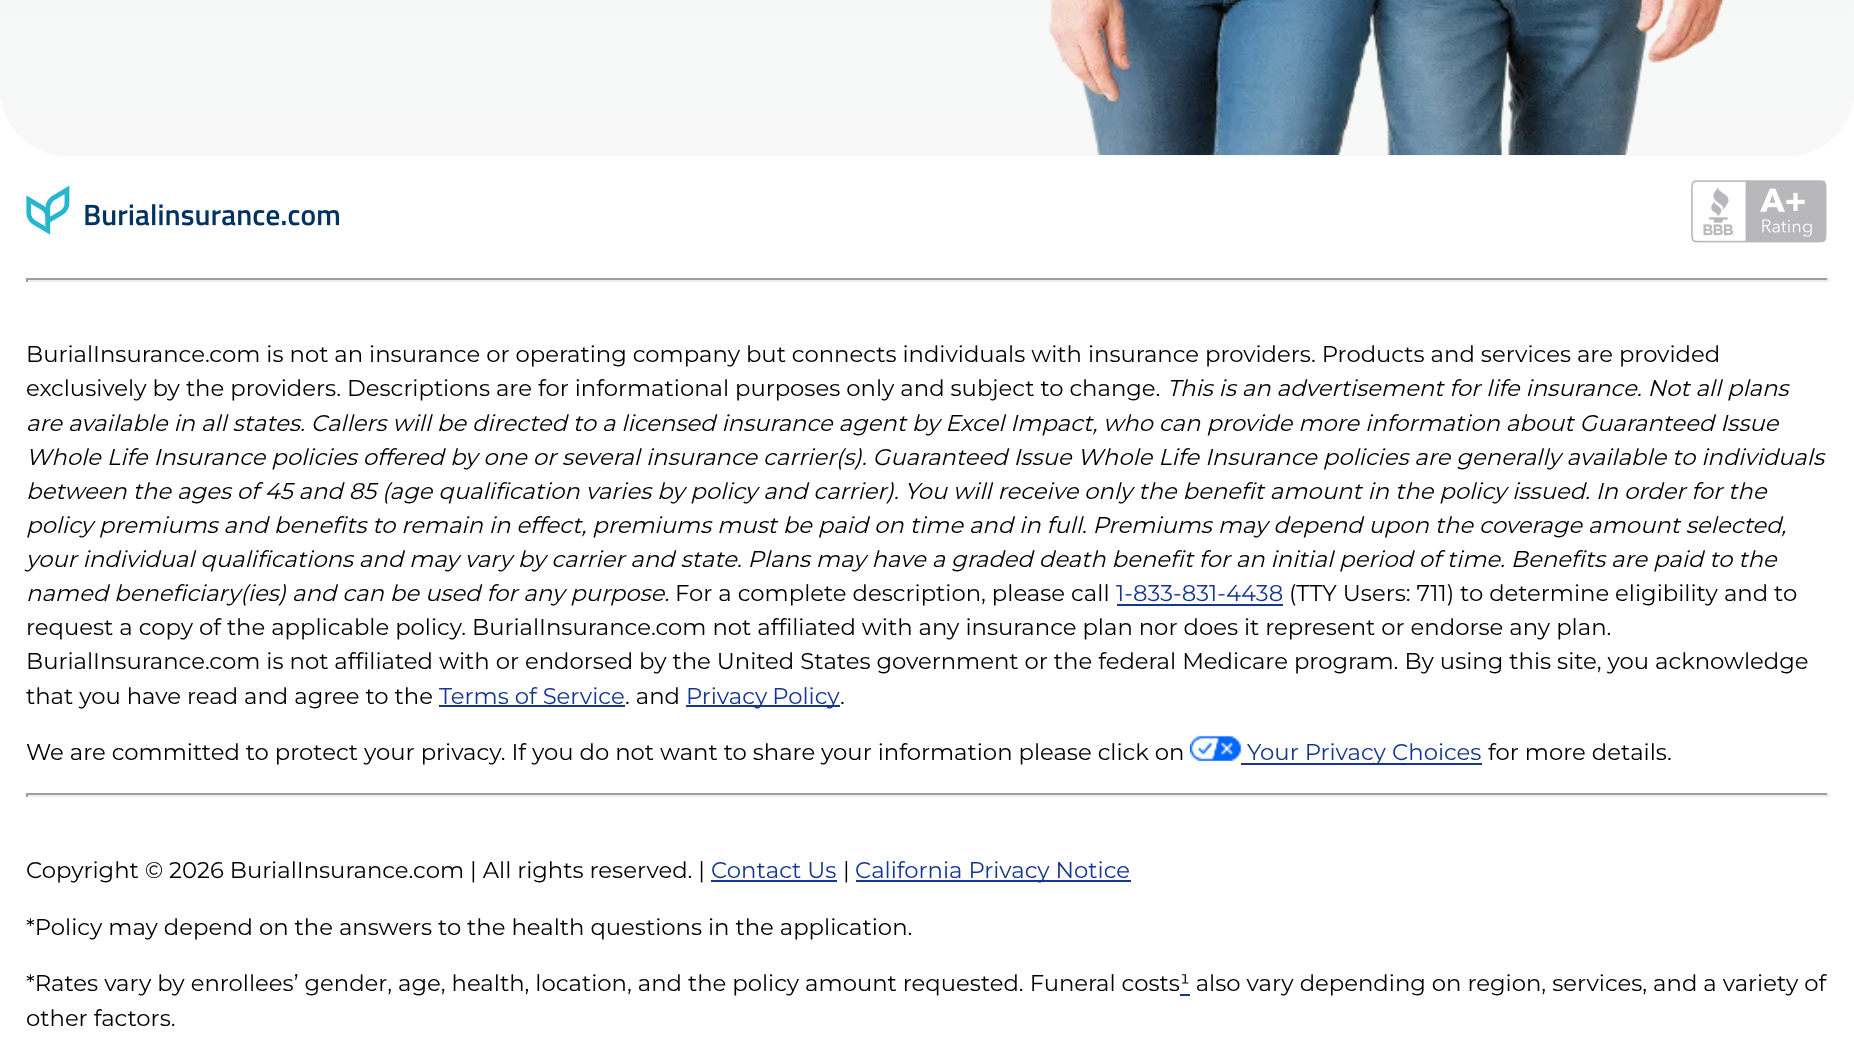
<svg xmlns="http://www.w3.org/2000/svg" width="1854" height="1058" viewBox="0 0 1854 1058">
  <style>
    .t1 { font: 100 22.75px Montserrat; fill: #000; }
    .t2 { font: italic 100 22.75px Montserrat; fill: #000; }
    .t3 { font: 100 22.75px Montserrat; fill: #153691; }
  </style>
  <defs>
    <linearGradient id="g1" gradientUnits="userSpaceOnUse" x1="927" y1="-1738" x2="928" y2="156"><stop offset="0" stop-color="#e5f6f9"/><stop offset="1" stop-color="#f8f8f8"/></linearGradient>
  </defs>
  <rect width="100%" height="100%" fill="#fff"/>
  <rect x="0" y="-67" width="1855" height="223" rx="67" fill="url(#g1)"/>
  <image x="1048" y="0" width="677" height="155" href="images/1.png"/>
  <image x="26" y="186" width="314" height="49" href="images/2.png"/>
  <image x="1691" y="180" width="136" height="63" href="images/3.png"/>
  <rect x="26" y="278" width="1803" height="2" fill="#9f9f9f"/>
  <rect x="1827" y="278" width="2" height="4" fill="#eee"/>
  <rect x="26" y="280" width="1803" height="2" fill="#eee"/>
  <rect x="26" y="278" width="2" height="4" fill="#9f9f9f"/>
  <text x="26" y="362" class="t1">BurialInsurance.com is not an insurance or operating company but connects individuals with insurance providers. Products and services are provided</text>
  <text x="26" y="396" class="t1">exclusively by the providers. Descriptions are for informational purposes only and subject to change.</text>
  <text x="1167" y="396" class="t2">This is an advertisement for life insurance. Not all plans</text>
  <text x="26" y="431" class="t2">are available in all states. Callers will be directed to a licensed insurance agent by Excel Impact, who can provide more information about Guaranteed Issue</text>
  <text x="26" y="465" class="t2">Whole Life Insurance policies offered by one or several insurance carrier(s). Guaranteed Issue Whole Life Insurance policies are generally available to individuals</text>
  <text x="26" y="499" class="t2">between the ages of 45 and 85 (age qualification varies by policy and carrier). You will receive only the benefit amount in the policy issued. In order for the</text>
  <text x="26" y="533" class="t2">policy premiums and benefits to remain in effect, premiums must be paid on time and in full. Premiums may depend upon the coverage amount selected,</text>
  <text x="26" y="567" class="t2">your individual qualifications and may vary by carrier and state. Plans may have a graded death benefit for an initial period of time. Benefits are paid to the</text>
  <text x="26" y="601" class="t2">named beneficiary(ies) and can be used for any purpose.</text>
  <text x="675" y="601" class="t1">For a complete description, please call</text>
  <text x="1116" y="601" class="t3">1-833-831-4438</text>
  <rect x="1117" y="604" width="166" height="2" fill="#153691"/>
  <text x="1289" y="601" class="t1">(TTY Users: 711) to determine eligibility and to</text>
  <text x="26" y="635" class="t1">request a copy of the applicable policy. BurialInsurance.com not affiliated with any insurance plan nor does it represent or endorse any plan.</text>
  <text x="26" y="669" class="t1">BurialInsurance.com is not affiliated with or endorsed by the United States government or the federal Medicare program. By using this site, you acknowledge</text>
  <text x="26" y="704" class="t1">that you have read and agree to the</text>
  <text x="439" y="704" class="t3">Terms of Service</text>
  <rect x="439" y="705" width="186" height="2" fill="#153691"/>
  <text x="625" y="704" class="t1">. and</text>
  <rect x="686" y="705" width="154" height="2" fill="#153691"/>
  <text x="686" y="704" word-spacing="-1" class="t3">Privacy Policy</text>
  <text x="840" y="704" class="t1">.</text>
  <text x="26" y="760" class="t1">We are committed to protect your privacy. If you do not want to share your information please click on</text>
  <image x="1190" y="735" width="52" height="26" href="images/4.png"/>
  <rect x="1241" y="763" width="241" height="2" fill="#153691"/>
  <text x="1247" y="760" class="t3">Your Privacy Choices</text>
  <text x="1488" y="760" class="t1">for more details.</text>
  <rect x="26" y="793" width="1803" height="2" fill="#9f9f9f"/>
  <rect x="1827" y="793" width="2" height="4" fill="#eee"/>
  <rect x="26" y="795" width="1803" height="2" fill="#eee"/>
  <rect x="26" y="793" width="2" height="4" fill="#9f9f9f"/>
  <text x="26" y="878" class="t1">Copyright © 2026 BurialInsurance.com | All rights reserved. |</text>
  <text x="711" y="878" class="t3">Contact Us</text>
  <rect x="711" y="880" width="126" height="2" fill="#153691"/>
  <text x="843" y="878" class="t1">|</text>
  <rect x="856" y="880" width="275" height="2" fill="#153691"/>
  <text x="855" y="878" class="t3">California Privacy Notice</text>
  <text x="26" y="935" class="t1">*Policy may depend on the answers to the health questions in the application.</text>
  <text x="26" y="991" class="t1">*Rates vary by enrollees’ gender, age, health, location, and the policy amount requested. Funeral costs¹ also vary depending on region, services, and a variety of</text>
  <rect x="1180" y="994" width="10" height="2" fill="#153691"/>
  <text x="26" y="1026" class="t1">other factors.</text>
</svg>
